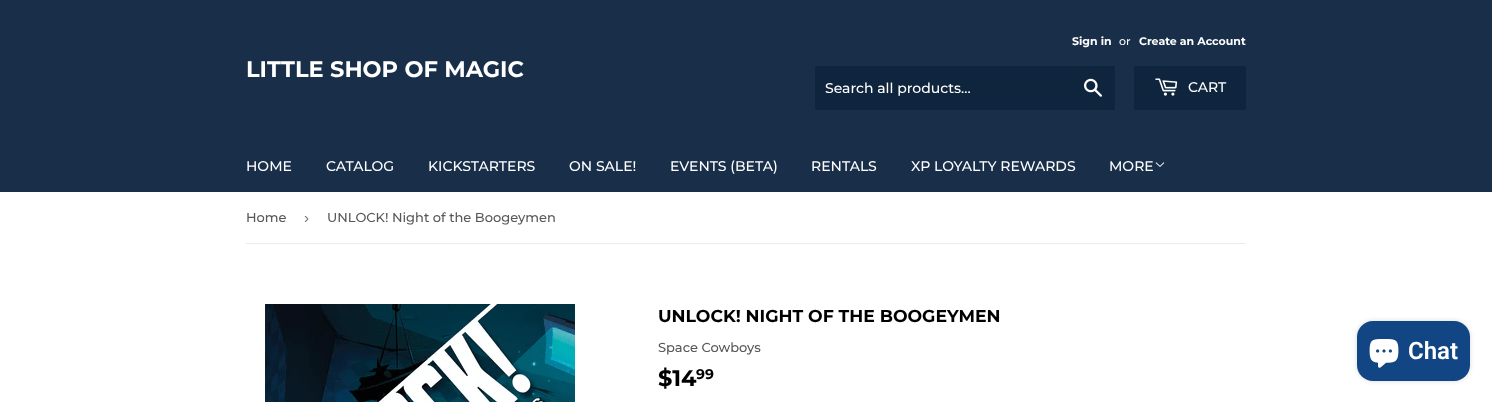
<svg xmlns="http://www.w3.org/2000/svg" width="1492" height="402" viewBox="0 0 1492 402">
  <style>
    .t1 { font: bold 22.5px Montserrat; fill: #fff; }
    .t2 { font: bold 11px Montserrat; fill: #fff; }
    .t3 { font: 500 11px Montserrat; fill: #fff; }
    .t4 { font: 500 14px Montserrat; fill: #fff; }
    .t5 { font: 500 13px Montserrat; fill: #585858; }
    .t6 { font: 15px Liberation Sans; fill: #767676; }
    .t7 { font: bold 17.3px Montserrat; fill: #000; }
    .t8 { font: bold 22.5px Montserrat; fill: #000; }
    .t9 { font: bold 14px Montserrat; fill: #000; }
    .t10 { font: 600 24px Roboto; fill: #fff; }
  </style>
  <rect width="100%" height="100%" fill="#fff"/>
  <rect x="0" y="0" width="1492" height="192" fill="#182e49"/>
  <text x="246" y="77" class="t1">LITTLE SHOP OF MAGIC</text>
  <text x="1072" y="45" class="t2">Sign in</text>
  <text x="1119" y="45" class="t3">or</text>
  <text x="1139" y="45" class="t2">Create an Account</text>
  <rect x="815" y="66" width="300" height="44" rx="2" fill="#0f243d"/>
  <text x="825" y="93" class="t4">Search all products...</text>
  <image x="1084" y="78" width="18" height="19" href="images/1.png"/>
  <rect x="1134" y="66" width="112" height="44" rx="2" fill="#0f243d"/>
  <image x="1155" y="78" width="23" height="18" href="images/2.png"/>
  <text x="1188" y="92" class="t4">CART</text>
  <text x="246" y="171" class="t4">HOME</text>
  <text x="326" y="171" class="t4">CATALOG</text>
  <text x="428" y="171" class="t4">KICKSTARTERS</text>
  <text x="569" y="171" class="t4">ON SALE!</text>
  <text x="670" y="171" class="t4">EVENTS (BETA)</text>
  <text x="811" y="171" class="t4">RENTALS</text>
  <text x="911" y="171" class="t4">XP LOYALTY REWARDS</text>
  <text x="1109" y="171" class="t4">MORE</text>
  <image x="1155" y="162" width="10" height="5" href="images/3.png"/>
  <rect x="246" y="243" width="1000" height="1" fill="#ececec"/>
  <text x="246" y="222" class="t5">Home</text>
  <text x="304" y="223" class="t6">›</text>
  <text x="327" y="222" class="t5">UNLOCK! Night of the Boogeymen</text>
  <image x="265" y="304" width="310" height="98" href="images/4.png"/>
  <text x="658" y="322" class="t7">UNLOCK! NIGHT OF THE BOOGEYMEN</text>
  <text x="658" y="352" class="t5">Space Cowboys</text>
  <text x="658" y="386" class="t8">$14</text>
  <text x="696" y="379" class="t9">99</text>
  <rect x="1357" y="321" width="113" height="60" rx="16" fill="#00000026" filter="blur(2.5px)"/>
  <rect x="1357" y="321" width="113" height="60" rx="16" fill="#124583"/>
  <image x="1369" y="339" width="30" height="29" href="images/5.png"/>
  <text x="1408" y="359" class="t10">Chat</text>
</svg>
